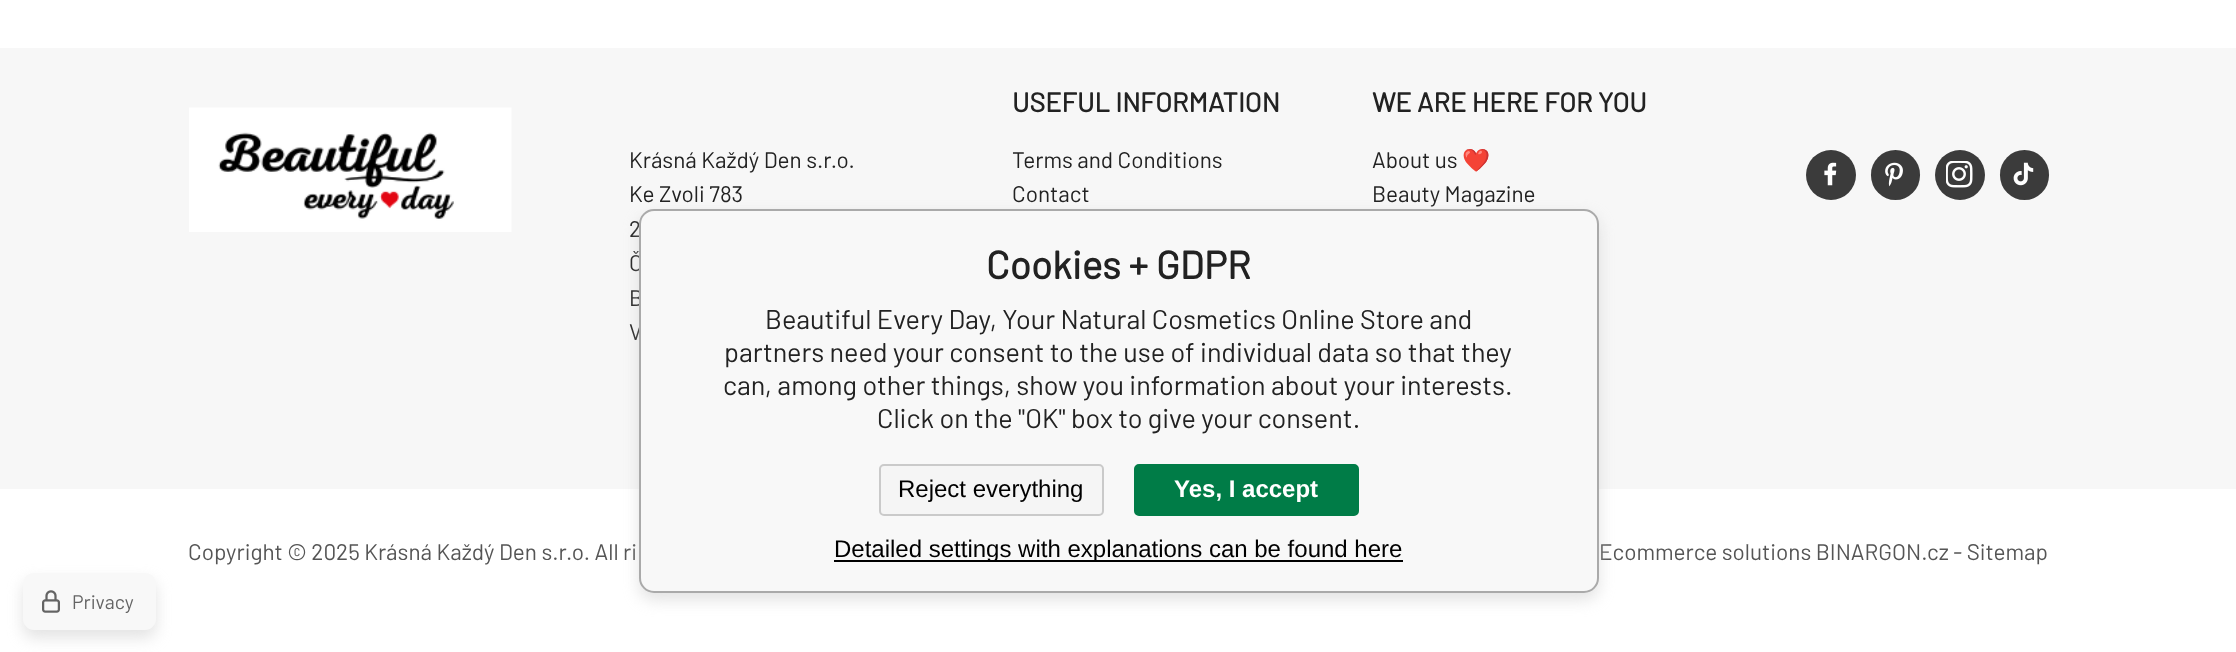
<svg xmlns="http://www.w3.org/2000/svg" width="2236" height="652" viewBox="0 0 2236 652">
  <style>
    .t1 { font: 22.5px Barlow; fill: #222; }
    .t2 { font: bold 27px Barlow; fill: #222; }
    .t3 { font: 22.5px Noto Color Emoji; fill: #222; }
    .t4 { font: 22.5px Barlow; fill: #555; }
    .t5 { font: bold 39px Barlow; fill: #222; }
    .t6 { font: 27px Barlow; fill: #222; }
    .t7 { font: 24px Liberation Sans; fill: #000; }
    .t8 { font: bold 24px Liberation Sans; fill: #fff; }
    .t9 { font: 19.5px Barlow; fill: #646464; }
  </style>
  <rect width="100%" height="100%" fill="#fff"/>
  <rect x="0" y="48" width="2236" height="441" fill="#f7f7f7"/>
  <image x="189" y="107" width="323" height="125" href="images/1.png"/>
  <text x="629" y="168" class="t1">Krásná Každý Den s.r.o.</text>
  <text x="629" y="202" class="t1">Ke Zvoli 783</text>
  <text x="629" y="237" class="t1">2</text>
  <text x="629" y="271" class="t1">Č</text>
  <text x="629" y="306" class="t1">B</text>
  <text x="629" y="340" class="t1">V</text>
  <text x="1012" y="112" class="t2">USEFUL INFORMATION</text>
  <text x="1012" y="168" class="t1">Terms and Conditions</text>
  <text x="1012" y="202" class="t1">Contact</text>
  <text x="1372" y="112" class="t2">WE ARE HERE FOR YOU</text>
  <text x="1372" y="168" class="t1">About us</text>
  <text x="1462" y="168" class="t3">❤️</text>
  <text x="1372" y="202" class="t1">Beauty Magazine</text>
  <circle cx="1831" cy="175" r="25" fill="#3b3b3b"/>
  <image x="1824" y="162" width="13" height="24" href="images/2.png"/>
  <rect x="1871" y="150" width="49" height="50" rx="24.5" fill="#3b3b3b"/>
  <image x="1885" y="162" width="18" height="25" href="images/3.png"/>
  <circle cx="1960" cy="175" r="25" fill="#3b3b3b"/>
  <image x="1946" y="161" width="27" height="27" href="images/4.png"/>
  <rect x="2000" y="150" width="49" height="50" rx="24.5" fill="#3b3b3b"/>
  <image x="2013" y="162" width="21" height="24" href="images/5.png"/>
  <text x="188" y="560" class="t4">Copyright © 2025 Krásná Každý Den s.r.o. All ri</text>
  <text x="1599" y="560" class="t4">Ecommerce solutions BINARGON.cz - Sitemap</text>
  <rect x="639" y="216" width="960" height="384" rx="15" fill="#c8c8c880" filter="blur(7.5px)"/>
  <rect x="640" y="210" width="958" height="382" rx="14" fill="#f8f8f8" stroke="#aaa" stroke-width="2"/>
  <text x="986" y="279" class="t5">Cookies + GDPR</text>
  <text x="765" y="329" class="t6">Beautiful Every Day, Your Natural Cosmetics Online Store and</text>
  <text x="724" y="362" class="t6">partners need your consent to the use of individual data so that they</text>
  <text x="723" y="395" class="t6">can, among other things, show you information about your interests.</text>
  <text x="877" y="428" class="t6">Click on the "OK" box to give your consent.</text>
  <rect x="880" y="465" width="223" height="50" rx="4" fill="#f5f5f5" stroke="#cacaca" stroke-width="2"/>
  <text x="898" y="497" class="t7">Reject everything</text>
  <rect x="1135" y="465" width="223" height="50" rx="4" fill="#007c47" stroke="#007c47" stroke-width="2"/>
  <text x="1174" y="497" class="t8">Yes, I accept</text>
  <rect x="834" y="560" width="569" height="2" fill="#000"/>
  <text x="834" y="557" class="t7">Detailed settings with explanations can be found here</text>
  <rect x="23" y="581" width="133" height="57" rx="11" fill="#c8c8c880" filter="blur(7.5px)"/>
  <rect x="23" y="573" width="133" height="57" rx="11" fill="#f8f8f8"/>
  <image x="42" y="590" width="18" height="23" href="images/6.png"/>
  <text x="72" y="609" class="t9">Privacy</text>
</svg>
